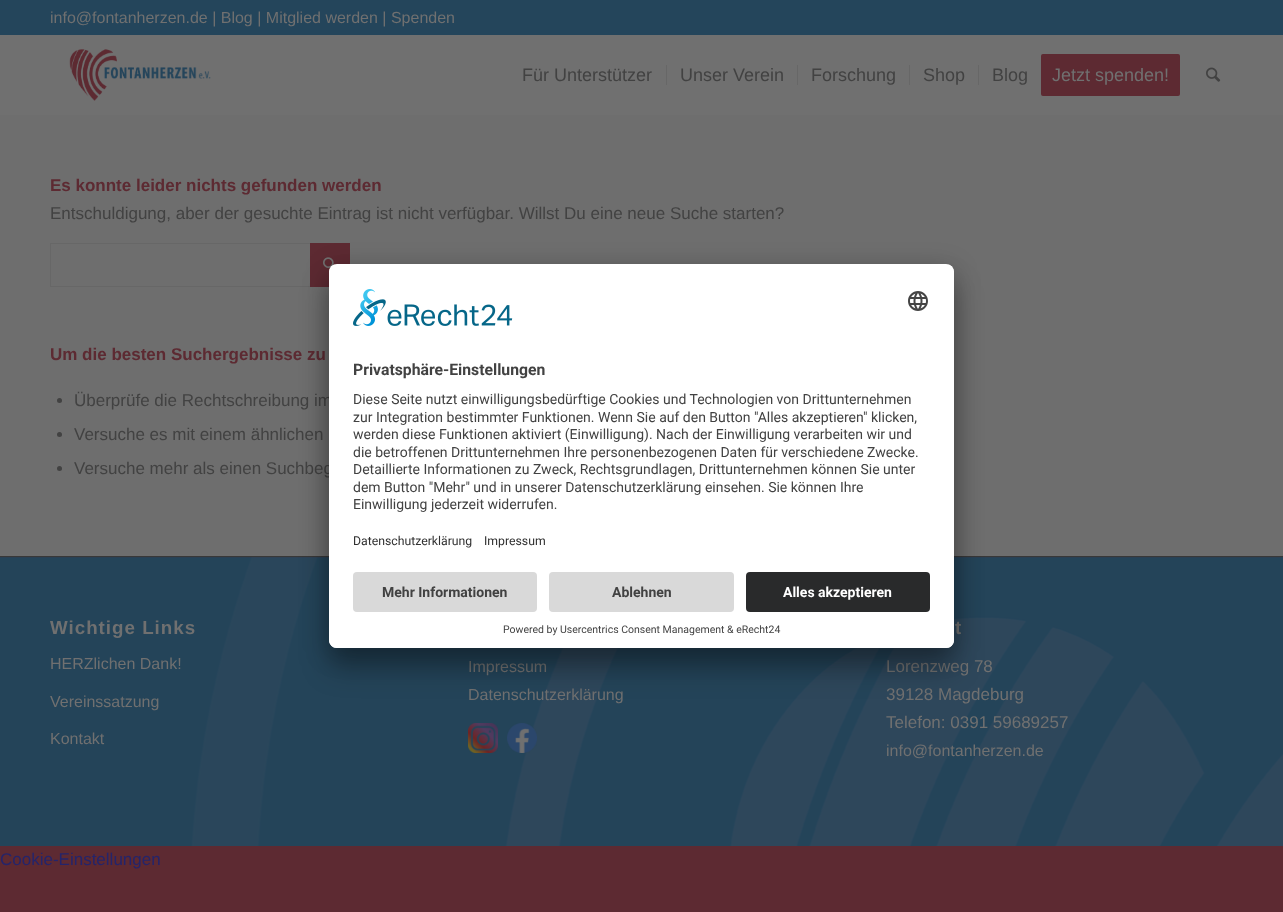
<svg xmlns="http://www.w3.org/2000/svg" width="1283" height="912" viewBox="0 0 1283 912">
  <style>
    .t1 { font: 16px Liberation Sans; fill: #707070; }
    .t2 { font: 18px Liberation Sans; fill: #424242; }
    .t3 { font: 18px Liberation Sans; fill: #707070; }
    .t4 { font: bold 17px Liberation Sans; fill: #5d2a32; }
    .t5 { font: 17px Liberation Sans; fill: #424242; }
    .t6 { font: bold 18.75px Liberation Sans; letter-spacing: 1px; fill: #707070; }
    .t7 { font: 17px Liberation Sans; fill: #707070; }
    .t8 { font: bold 15.75px Roboto; fill: #424242; }
    .t9 { font: 14px Roboto; fill: #424242; }
    .t10 { font: 12.25px Roboto; fill: #303030; }
    .t11 { font: bold 14px Roboto; fill: #424242; }
    .t12 { font: bold 14px Roboto; fill: #fff; }
    .t13 { font: 10.5px Roboto; fill: #424242; }
    .t14 { font: 17px Liberation Sans; fill: #24246b; }
  </style>
  <defs>
    <clipPath id="clip1"><rect x="329" y="264" width="625" height="384" rx="8"/></clipPath>
    <clipPath id="clip2"><path d="M337 264H946C950.5 264 954 267.5 954 272V564H329V272C329 267.5 332.5 264 337 264Z"/></clipPath>
  </defs>
  <rect width="100%" height="100%" fill="#5d2a32"/>
  <rect x="0" y="0" width="1283" height="35" fill="#24455b"/>
  <text x="50" y="23" class="t1">info@fontanherzen.de | Blog | Mitglied werden | Spenden</text>
  <rect x="0" y="35" width="1283" height="80" fill="#707070"/>
  <image x="69" y="49" width="142" height="52" href="images/1.png"/>
  <text x="522" y="81" class="t2">Für Unterstützer</text>
  <text x="680" y="81" class="t2">Unser Verein</text>
  <rect x="666" y="65" width="1" height="20" fill="#676767"/>
  <text x="811" y="81" class="t2">Forschung</text>
  <rect x="797" y="65" width="1" height="20" fill="#676767"/>
  <text x="923" y="81" class="t2">Shop</text>
  <rect x="909" y="65" width="1" height="20" fill="#676767"/>
  <text x="992" y="81" class="t2">Blog</text>
  <rect x="978" y="65" width="1" height="20" fill="#676767"/>
  <rect x="1042" y="55" width="137" height="40" rx="1" fill="#5d2a32" stroke="#5d2a32" stroke-width="2"/>
  <text x="1052" y="81" class="t3">Jetzt spenden!</text>
  <image x="1206" y="67" width="15" height="15" href="images/2.png"/>
  <rect x="0" y="115" width="1283" height="441" fill="#6e6e6e"/>
  <text x="50" y="191" class="t4">Es konnte leider nichts gefunden werden</text>
  <text x="50" y="219" class="t5">Entschuldigung, aber der gesuchte Eintrag ist nicht verfügbar. Willst Du eine neue Suche starten?</text>
  <rect x="50.5" y="243.5" width="299" height="43" fill="none" stroke="#676767"/>
  <rect x="310" y="243" width="40" height="44" fill="#5d2a32"/>
  <image x="323" y="257" width="11" height="11" href="images/3.png"/>
  <text x="50" y="360" class="t4">Um die besten Suchergebnisse zu</text>
  <circle cx="59.5" cy="400.5" r="2.5" fill="#424242"/>
  <text x="74" y="406" class="t5">Überprüfe die Rechtschreibung im</text>
  <circle cx="59.5" cy="434.5" r="2.5" fill="#424242"/>
  <text x="74" y="440" class="t5">Versuche es mit einem ähnlichen</text>
  <circle cx="59.5" cy="468.5" r="2.5" fill="#424242"/>
  <text x="74" y="474" class="t5">Versuche mehr als einen Suchbeg</text>
  <image x="0" y="557" width="1283" height="289" href="images/4.png"/>
  <rect x="0" y="556" width="1283" height="1" fill="#383838"/>
  <text x="50" y="634" class="t6">Wichtige Links</text>
  <text x="50" y="669" class="t1">HERZlichen Dank!</text>
  <text x="50" y="707" class="t1">Vereinssatzung</text>
  <text x="50" y="744" class="t1">Kontakt</text>
  <text x="468" y="672" class="t1">Impressum</text>
  <text x="468" y="700" class="t1">Datenschutzerklärung</text>
  <image x="468" y="723" width="30" height="30" href="images/5.png"/>
  <image x="507" y="723" width="30" height="30" href="images/6.png"/>
  <text x="955" y="634" class="t6">t</text>
  <text x="886" y="672" class="t7">Lorenzweg 78</text>
  <text x="886" y="700" class="t7">39128 Magdeburg</text>
  <text x="886" y="728" class="t7">Telefon: 0391 59689257</text>
  <text x="886" y="756" class="t1">info@fontanherzen.de</text>
  <rect x="329" y="284" width="625" height="384" rx="8" fill="#0000004d" filter="blur(14px)"/>
  <rect x="329" y="269" width="625" height="384" rx="8" fill="#00000038" filter="blur(13px)"/>
  <rect x="329" y="264" width="625" height="384" rx="8" fill="#fff"/>
  <g clip-path="url(#clip1)">
    <g clip-path="url(#clip2)">
      <rect x="329" y="265" width="625" height="299" fill="#fff"/>
    </g>
  </g>
  <image x="353" y="289" width="160" height="37" href="images/7.png"/>
  <image x="908" y="291" width="20" height="20" href="images/8.png"/>
  <text x="353" y="375" class="t8">Privatsphäre-Einstellungen</text>
  <text x="353" y="404" class="t9">Diese Seite nutzt einwilligungsbedürftige Cookies und Technologien von Drittunternehmen</text>
  <text x="353" y="422" class="t9">zur Integration bestimmter Funktionen. Wenn Sie auf den Button "Alles akzeptieren" klicken,</text>
  <text x="353" y="439" class="t9">werden diese Funktionen aktiviert (Einwilligung). Nach der Einwilligung verarbeiten wir und</text>
  <text x="353" y="457" class="t9">die betroffenen Drittunternehmen Ihre personenbezogenen Daten für verschiedene Zwecke.</text>
  <text x="353" y="474" class="t9">Detaillierte Informationen zu Zweck, Rechtsgrundlagen, Drittunternehmen können Sie unter</text>
  <text x="353" y="492" class="t9">dem Button "Mehr" und in unserer Datenschutzerklärung einsehen. Sie können Ihre</text>
  <text x="353" y="509" class="t9">Einwilligung jederzeit widerrufen.</text>
  <text x="353" y="545" class="t10">Datenschutzerklärung</text>
  <text x="484" y="545" class="t10">Impressum</text>
  <path d="M329 564H954V640C954 644.5 950.5 648 946 648H337C332.5 648 329 644.5 329 640Z" fill="#fff"/>
  <rect x="353" y="572" width="184" height="40" rx="4" fill="#d9d9d9"/>
  <text x="382" y="597" class="t11">Mehr Informationen</text>
  <rect x="549" y="572" width="185" height="40" rx="4" fill="#d9d9d9"/>
  <text x="612" y="597" class="t11">Ablehnen</text>
  <rect x="746" y="572" width="184" height="40" rx="4" fill="#292a2b"/>
  <text x="783" y="597" class="t12">Alles akzeptieren</text>
  <text x="503" y="633" class="t13">Powered by Usercentrics Consent Management &amp; eRecht24</text>
  <text x="0" y="865" class="t14">Cookie-Einstellungen</text>
</svg>
